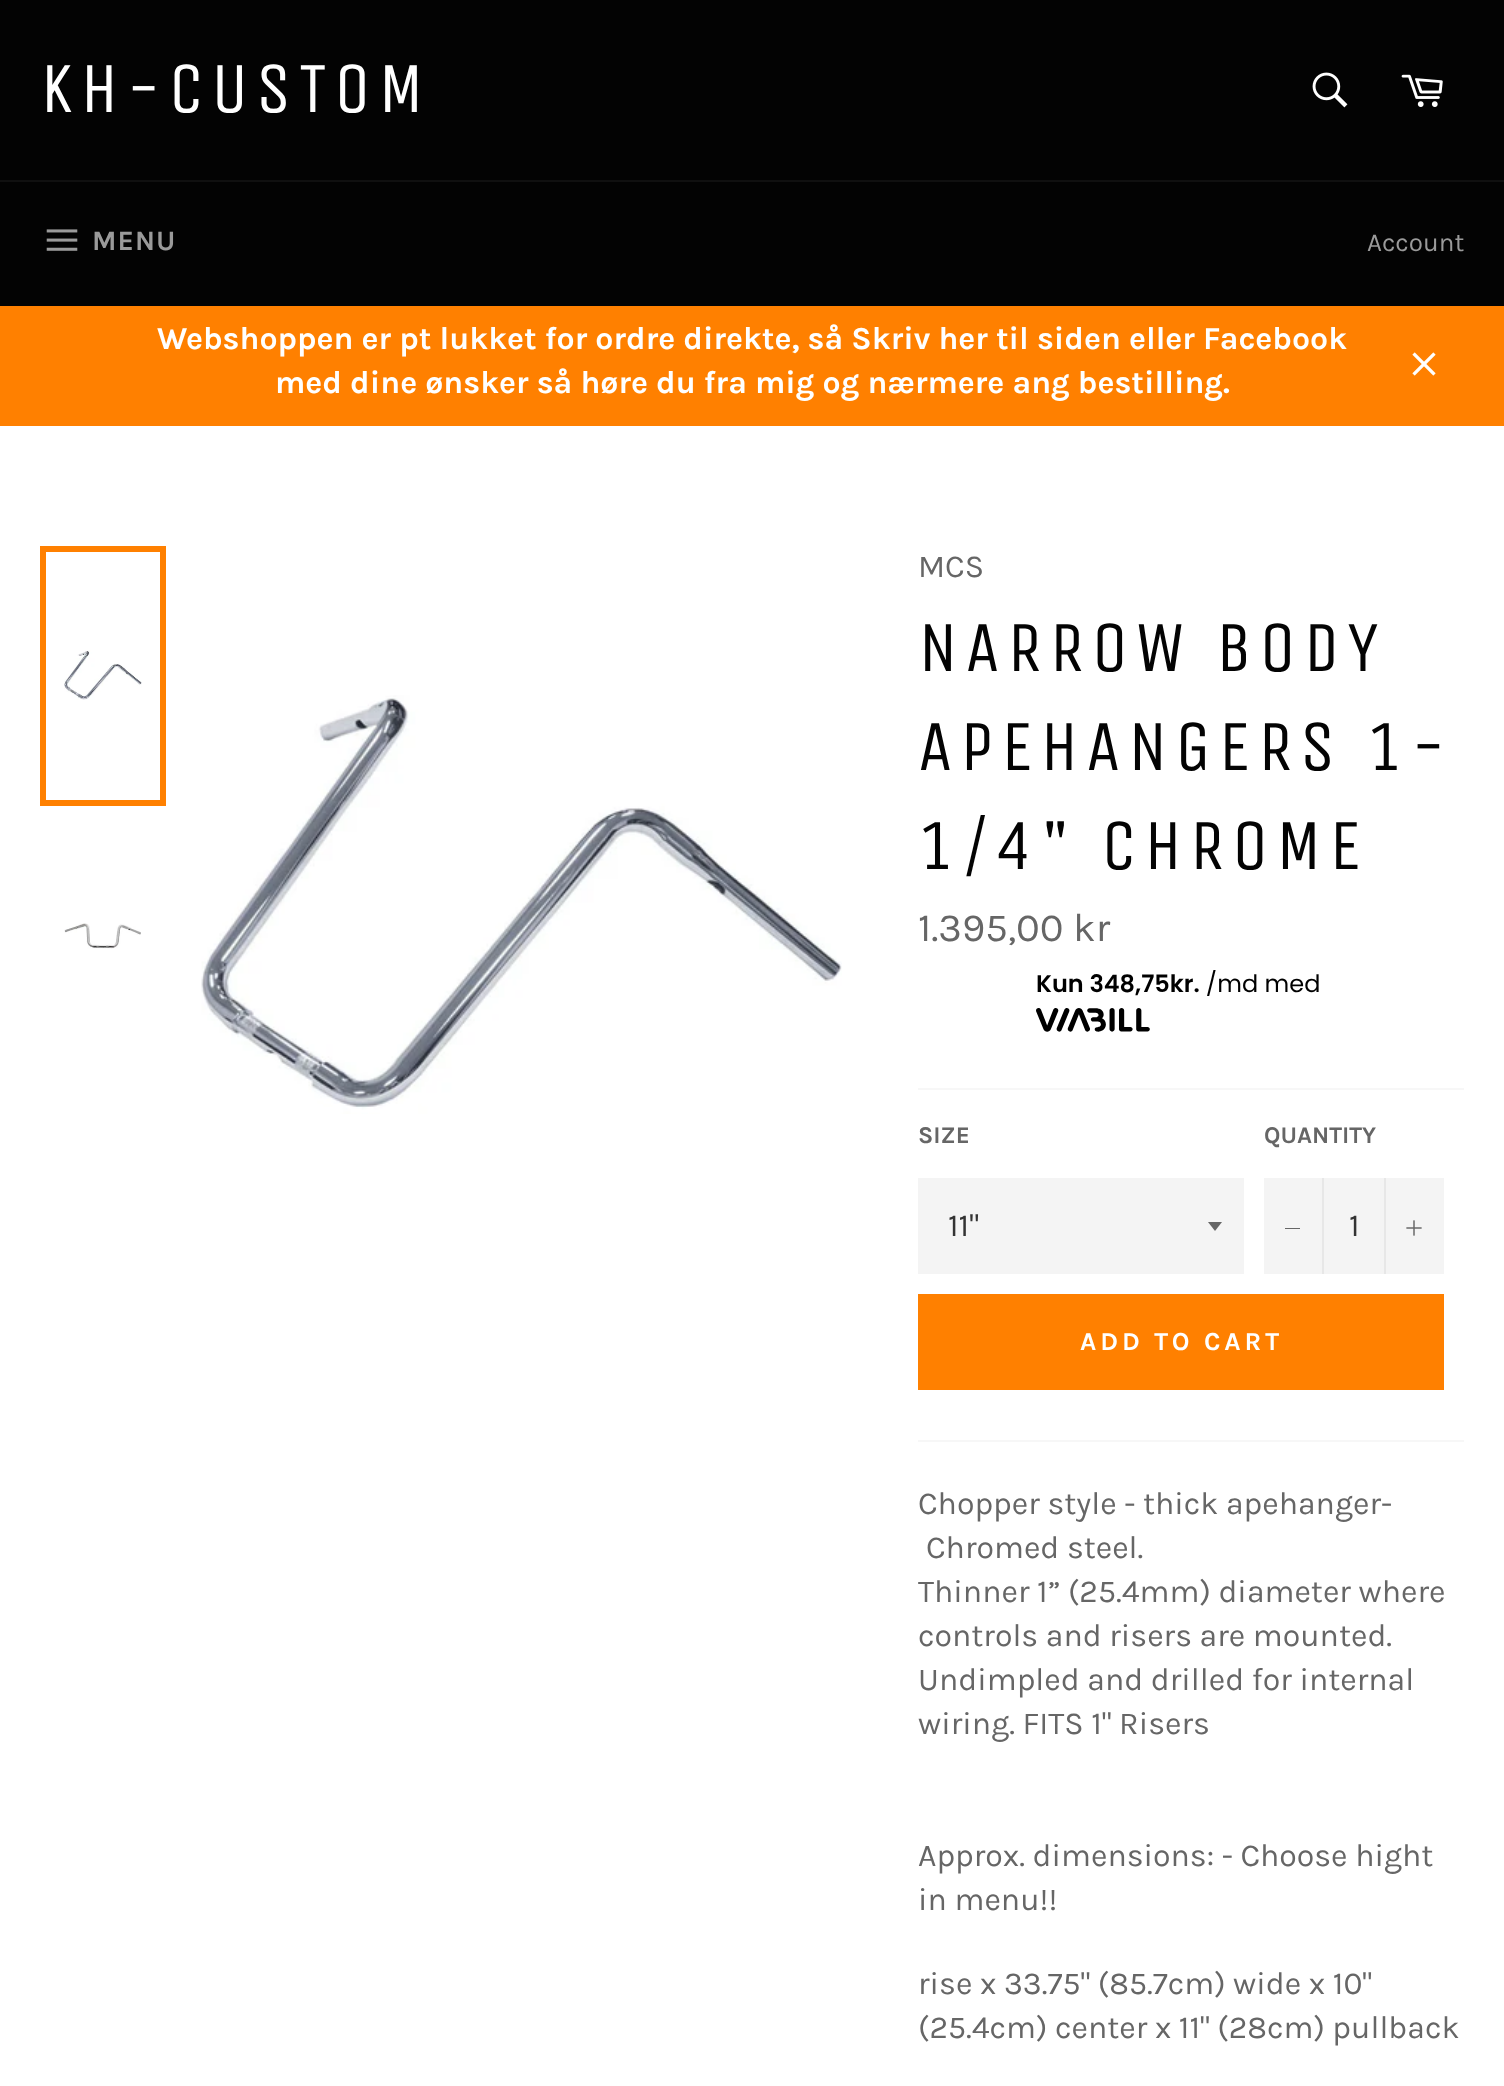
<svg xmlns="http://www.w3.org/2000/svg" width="1504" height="2086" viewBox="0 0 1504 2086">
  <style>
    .t1 { font: 72px Unica One; letter-spacing: 7.25px; fill: #fff; }
    .t2 { font: bold 28px Karla; letter-spacing: 1px; fill: #9a9a9a; }
    .t3 { font: 26px Karla; fill: #9a9a9a; }
    .t4 { font: bold 32px Karla; fill: #fff; }
    .t5 { font: 32px Karla; fill: #666; }
    .t6 { font: 72px Unica One; letter-spacing: 7.25px; fill: #030303; }
    .t7 { font: 40px Karla; fill: #666; }
    .t8 { font: bold 24px Karla; fill: #666; }
    .t9 { font: 32px Karla; fill: #333; }
    .t10 { font: bold 26px Karla; letter-spacing: 3.9px; fill: #fff; }
  </style>
  <rect width="100%" height="100%" fill="#030303"/>
  <text x="40" y="112" class="t1">KH-CUSTOM</text>
  <image x="1312" y="72" width="36" height="36" href="images/1.png"/>
  <image x="1401" y="74" width="42" height="33" href="images/2.png"/>
  <rect x="0" y="180" width="1504" height="2" fill="#101010"/>
  <image x="46" y="229" width="32" height="22" href="images/3.png"/>
  <text x="92" y="250" class="t2">MENU</text>
  <text x="1367" y="251" class="t3">Account</text>
  <rect x="0" y="306" width="1504" height="120" fill="#ff8000"/>
  <text x="157" y="349" class="t4">Webshoppen er pt lukket for ordre direkte, så Skriv her til siden eller Facebook</text>
  <text x="275" y="393" class="t4">med dine ønsker så høre du fra mig og nærmere ang bestilling.</text>
  <image x="1412" y="352" width="24" height="24" href="images/4.png"/>
  <rect x="0" y="426" width="1504" height="1660" fill="#fff"/>
  <image x="64" y="650" width="78" height="50" href="images/5.png"/>
  <rect x="43" y="549" width="120" height="254" fill="none" stroke="#ff8000" stroke-width="6"/>
  <image x="64" y="923" width="77" height="26" href="images/6.png"/>
  <image x="201" y="695" width="641" height="419" href="images/7.png"/>
  <text x="918" y="577" class="t5">MCS</text>
  <text x="918" y="671" class="t6">NARROW BODY</text>
  <text x="918" y="770" class="t6">APEHANGERS 1-</text>
  <text x="918" y="869" class="t6">1/4" CHROME</text>
  <text x="918" y="941" class="t7">1.395,00 kr</text>
  <image x="1036" y="970" width="283" height="62" href="images/8.png"/>
  <rect x="918" y="1088" width="546" height="2" fill="#f7f7f7"/>
  <text x="918" y="1143" class="t8">SIZE</text>
  <rect x="918" y="1178" width="326" height="96" fill="#f4f4f4"/>
  <path d="M1208 1222L1215 1231L1222 1222Z" fill="#666"/>
  <text x="948" y="1236" class="t9">11"</text>
  <text x="1264" y="1143" class="t8">QUANTITY</text>
  <rect x="1264" y="1178" width="180" height="96" fill="#f4f4f4"/>
  <rect x="1322" y="1178" width="2" height="96" fill="#e7e7e7"/>
  <rect x="1285" y="1228" width="15" height="1" fill="#666"/>
  <text x="1349" y="1236" class="t9">1</text>
  <rect x="1384" y="1178" width="2" height="96" fill="#e7e7e7"/>
  <image x="1406" y="1220" width="16" height="16" href="images/9.png"/>
  <rect x="918" y="1294" width="526" height="96" fill="#ff8000"/>
  <text x="1080" y="1350" class="t10">ADD TO CART</text>
  <rect x="918" y="1440" width="546" height="2" fill="#f7f7f7"/>
  <text x="918" y="1514" class="t5">Chopper style - thick apehanger-</text>
  <text x="926" y="1558" class="t5">Chromed steel.</text>
  <text x="918" y="1602" class="t5">Thinner 1” (25.4mm) diameter where</text>
  <text x="918" y="1646" class="t5">controls and risers are mounted.</text>
  <text x="918" y="1690" class="t5">Undimpled and drilled for internal</text>
  <text x="918" y="1734" class="t5">wiring. FITS 1" Risers</text>
  <text x="918" y="1866" class="t5">Approx. dimensions: - Choose hight</text>
  <text x="918" y="1910" class="t5">in menu!!</text>
  <text x="918" y="1994" class="t5">rise x 33.75" (85.7cm) wide x 10"</text>
  <text x="918" y="2038" class="t5">(25.4cm) center x 11" (28cm) pullback</text>
</svg>
